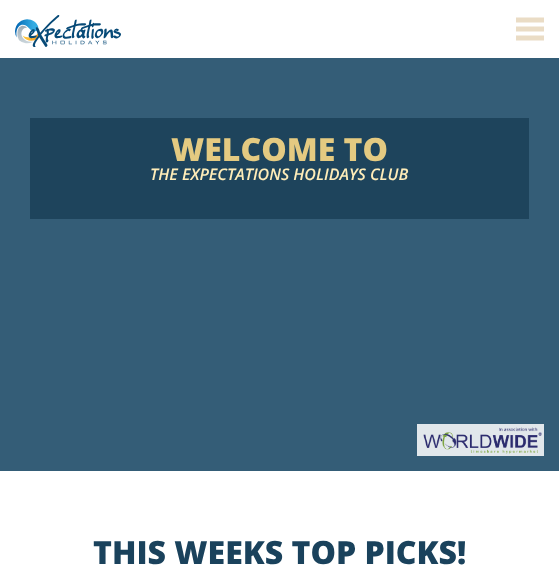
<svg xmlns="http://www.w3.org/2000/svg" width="559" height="580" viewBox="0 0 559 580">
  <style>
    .t1 { font: 800 32px Open Sans; fill: #e4ca81; }
    .t2 { font: italic 600 16px Open Sans; fill: #ffedb9; }
    .t3 { font: 800 32px Open Sans; fill: #1a425c; }
  </style>
  <rect width="100%" height="100%" fill="#fff"/>
  <image x="15" y="15" width="106" height="32" href="images/1.png"/>
  <path d="M516 20H544M516 29H544M516 38H544" fill="none" stroke="#eadcc5" stroke-width="4.9"/>
  <rect x="0" y="58" width="559" height="413" fill="#345d77"/>
  <rect x="30" y="118" width="499" height="101" fill="#1e445c"/>
  <text x="171" y="161" class="t1">WELCOME TO</text>
  <text x="150" y="180" class="t2">THE EXPECTATIONS HOLIDAYS CLUB</text>
  <rect x="417" y="424" width="127" height="32" fill="#c2ced6"/>
  <image x="417" y="424" width="127" height="32" href="images/2.png"/>
  <text x="93" y="564" class="t3">THIS WEEKS TOP PICKS!</text>
</svg>
